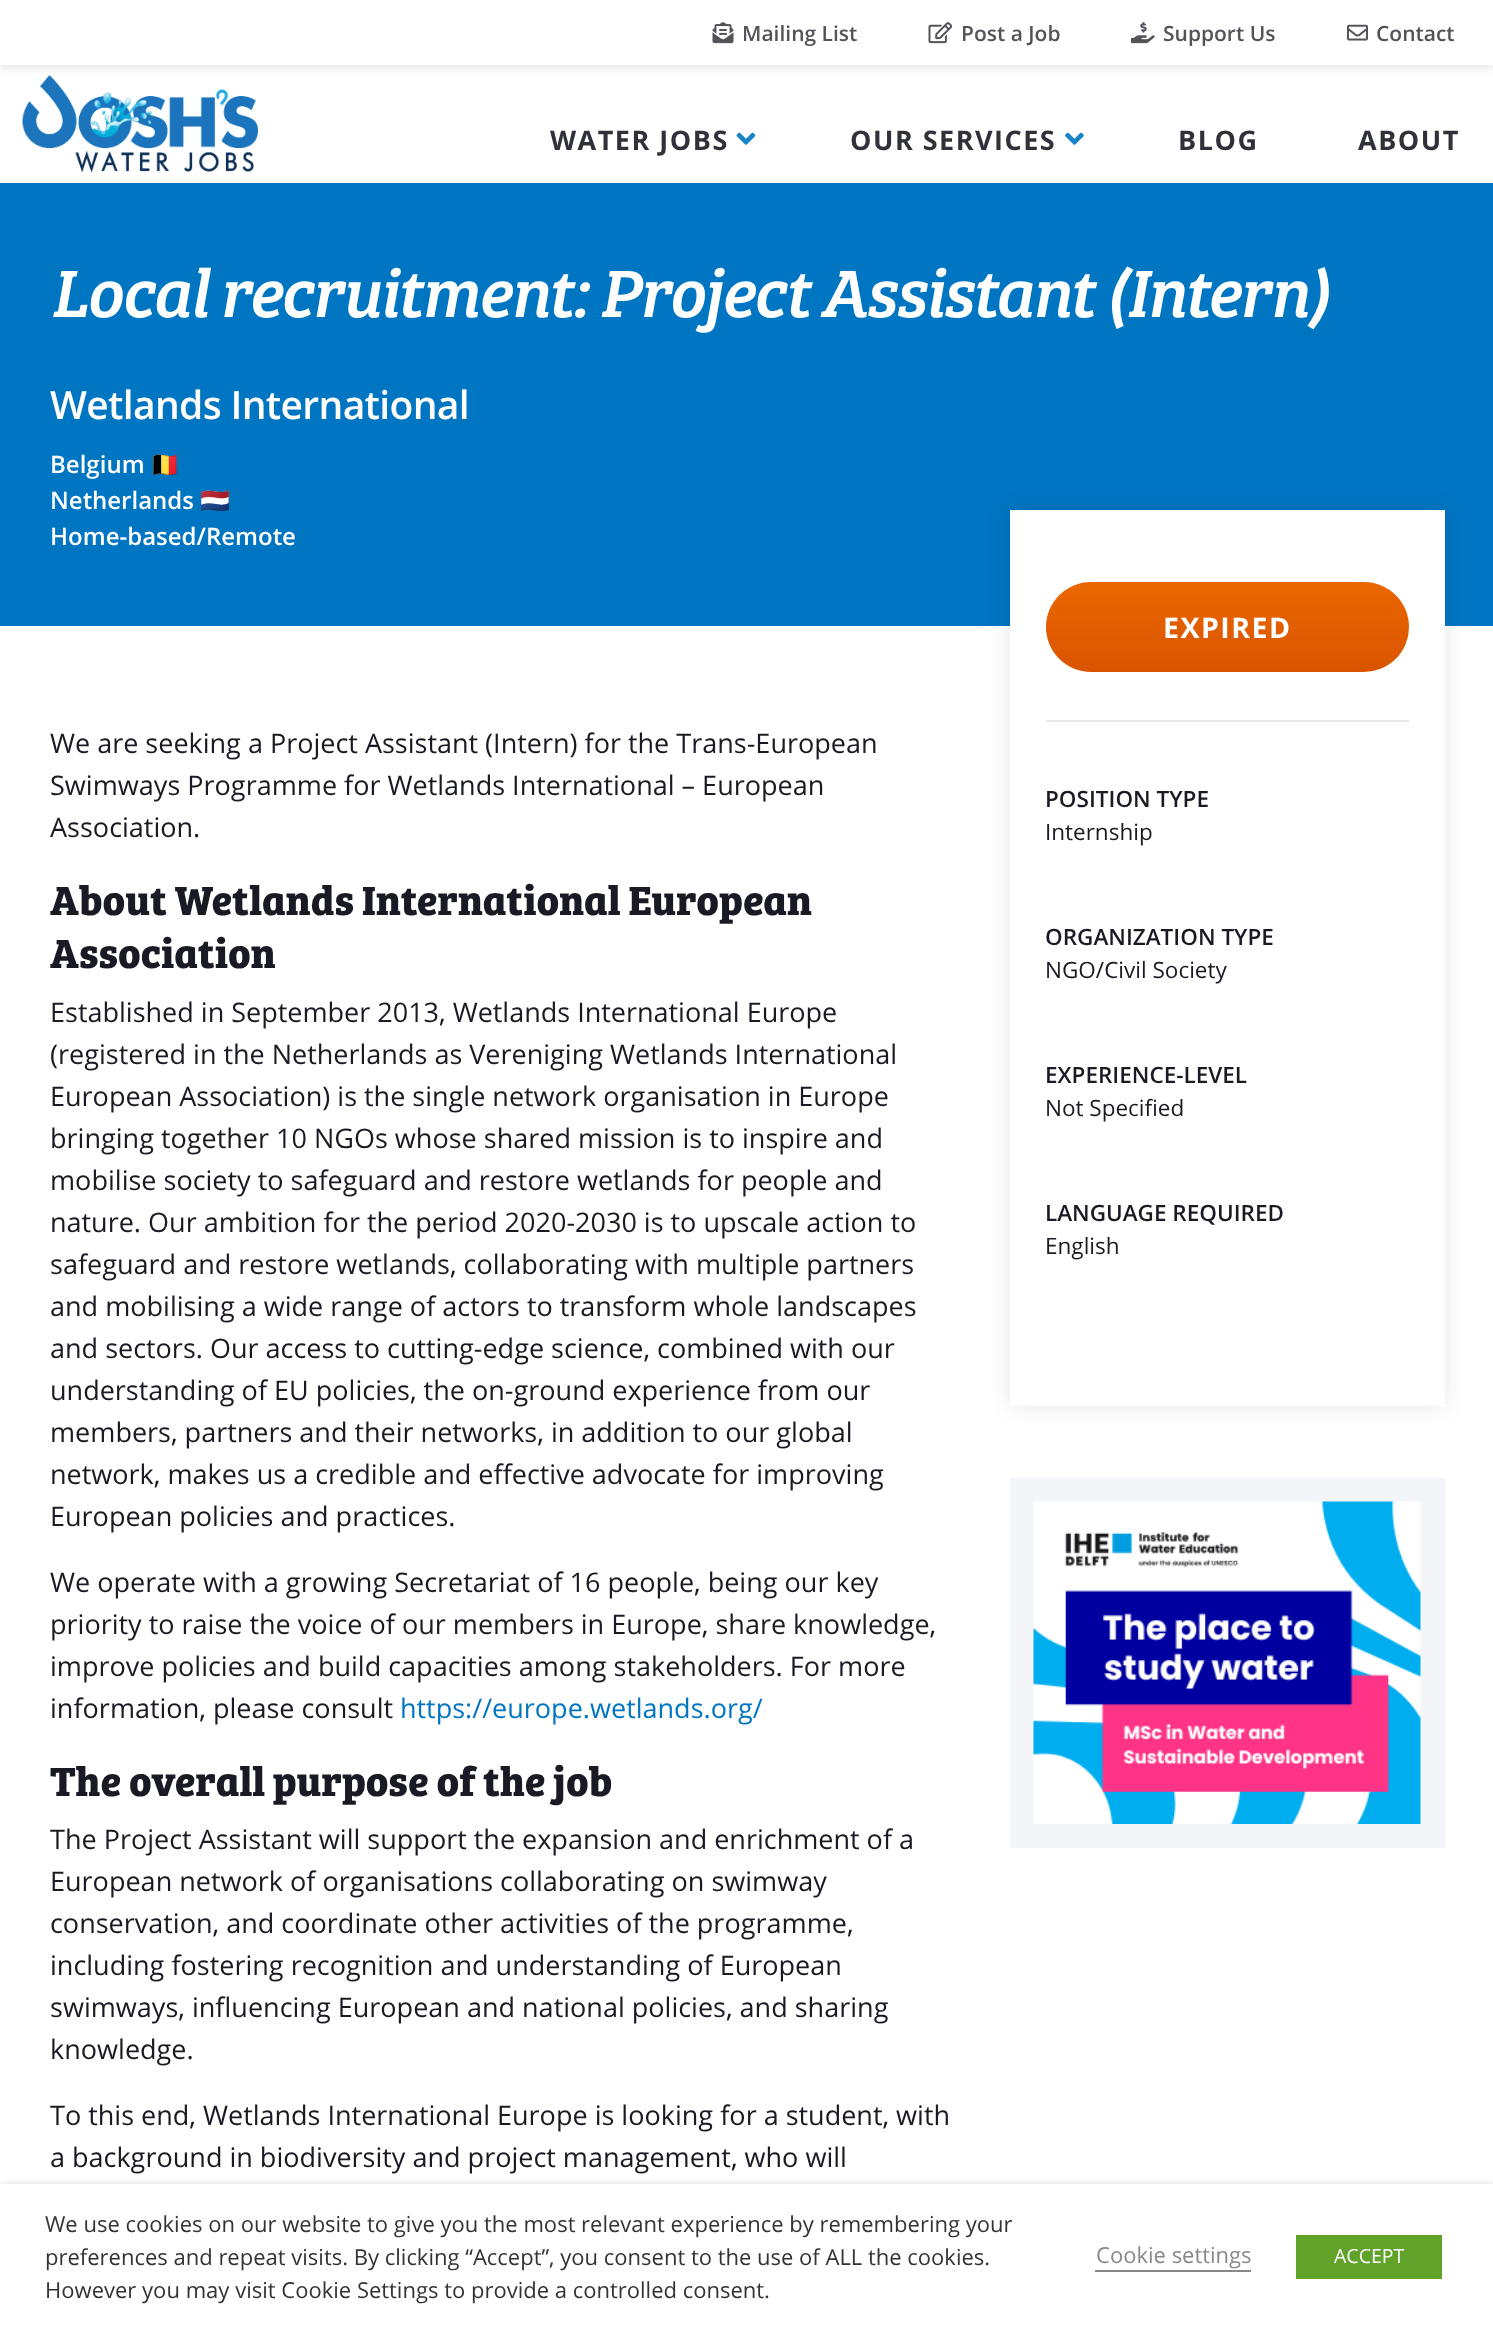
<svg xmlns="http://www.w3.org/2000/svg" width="1493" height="2327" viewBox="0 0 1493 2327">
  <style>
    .t1 { font: 600 21px Open Sans; fill: #53535a; }
    .t2 { font: bold 27px Open Sans; letter-spacing: 1.5px; fill: #303139; }
    .t3 { font: italic 69px Bree Serif; letter-spacing: -1.75px; fill: #fff; }
    .t4 { font: 600 39px Open Sans; letter-spacing: -0.65px; fill: #fff; }
    .t5 { font: 600 24px Open Sans; fill: #fff; }
    .t6 { font: bold 24px Noto Color Emoji; fill: #fff; }
    .t7 { font: 27px Open Sans; fill: #191a23; }
    .t8 { font: bold 42px Bree Serif; fill: #191a23; }
    .t9 { font: 27px Open Sans; fill: #0075c2; }
    .t10 { font: bold 28.5px Open Sans; letter-spacing: 1.5px; fill: #fff; }
    .t11 { font: 600 22.5px Open Sans; fill: #191a23; }
    .t12 { font: 22.5px Open Sans; fill: #191a23; }
    .t13 { font: 22px Open Sans; fill: #333; }
    .t14 { font: 22px Open Sans; fill: #898888; }
    .t15 { font: 19.5px Open Sans; fill: #fff; }
  </style>
  <defs>
    <clipPath id="clip1"><path d="M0 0H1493V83H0ZM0 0H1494V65H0Z" clip-rule="evenodd"/></clipPath>
    <linearGradient id="g1" gradientUnits="userSpaceOnUse" x1="1227" y1="582" x2="1227" y2="672"><stop offset="0" stop-color="#ea6700"/><stop offset="1" stop-color="#da5400"/></linearGradient>
    <clipPath id="clip2"><rect x="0" y="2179" width="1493" height="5"/></clipPath>
  </defs>
  <rect width="100%" height="100%" fill="#fff"/>
  <g clip-path="url(#clip1)">
    <rect x="0" y="3" width="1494" height="65" fill="#0000001a" filter="blur(4.5px)"/>
  </g>
  <image x="712" y="22" width="22" height="22" href="images/1.png"/>
  <text x="742" y="41" class="t1">Mailing List</text>
  <image x="928" y="22" width="25" height="22" href="images/2.png"/>
  <text x="961" y="41" class="t1">Post a Job</text>
  <image x="1131" y="22" width="24" height="22" href="images/3.png"/>
  <text x="1163" y="41" class="t1">Support Us</text>
  <image x="1347" y="24" width="21" height="17" href="images/4.png"/>
  <text x="1376" y="41" class="t1">Contact</text>
  <image x="22" y="75" width="236" height="98" href="images/5.png"/>
  <text x="550" y="150" class="t2">WATER JOBS</text>
  <image x="736" y="132" width="20" height="13" href="images/6.png"/>
  <text x="850" y="150" class="t2">OUR SERVICES</text>
  <image x="1065" y="132" width="19" height="13" href="images/7.png"/>
  <text x="1178" y="150" class="t2">BLOG</text>
  <text x="1358" y="150" class="t2">ABOUT</text>
  <rect x="0" y="183" width="1493" height="443" fill="#0075c2"/>
  <text x="50" y="317" class="t3">Local recruitment: Project Assistant (Intern)</text>
  <text x="50" y="419" class="t4">Wetlands International</text>
  <text x="50" y="473" class="t5">Belgium</text>
  <text x="150" y="473" class="t6">🇧🇪</text>
  <text x="50" y="509" class="t5">Netherlands</text>
  <text x="200" y="509" class="t6">🇳🇱</text>
  <text x="50" y="545" class="t5">Home-based/Remote</text>
  <text x="50" y="753" class="t7">We are seeking a Project Assistant (Intern) for the Trans-European</text>
  <text x="50" y="795" class="t7">Swimways Programme for Wetlands International – European</text>
  <text x="50" y="837" class="t7">Association.</text>
  <text x="50" y="915" class="t8">About Wetlands International European</text>
  <text x="50" y="968" class="t8">Association</text>
  <text x="50" y="1022" class="t7">Established in September 2013, Wetlands International Europe</text>
  <text x="50" y="1064" class="t7">(registered in the Netherlands as Vereniging Wetlands International</text>
  <text x="50" y="1106" class="t7">European Association) is the single network organisation in Europe</text>
  <text x="50" y="1148" class="t7">bringing together 10 NGOs whose shared mission is to inspire and</text>
  <text x="50" y="1190" class="t7">mobilise society to safeguard and restore wetlands for people and</text>
  <text x="50" y="1232" class="t7">nature. Our ambition for the period 2020-2030 is to upscale action to</text>
  <text x="50" y="1274" class="t7">safeguard and restore wetlands, collaborating with multiple partners</text>
  <text x="50" y="1316" class="t7">and mobilising a wide range of actors to transform whole landscapes</text>
  <text x="50" y="1358" class="t7">and sectors. Our access to cutting-edge science, combined with our</text>
  <text x="50" y="1400" class="t7">understanding of EU policies, the on-ground experience from our</text>
  <text x="50" y="1442" class="t7">members, partners and their networks, in addition to our global</text>
  <text x="50" y="1484" class="t7">network, makes us a credible and effective advocate for improving</text>
  <text x="50" y="1526" class="t7">European policies and practices.</text>
  <text x="50" y="1592" class="t7">We operate with a growing Secretariat of 16 people, being our key</text>
  <text x="50" y="1634" class="t7">priority to raise the voice of our members in Europe, share knowledge,</text>
  <text x="50" y="1676" class="t7">improve policies and build capacities among stakeholders. For more</text>
  <text x="50" y="1718" class="t7">information, please consult</text>
  <text x="400" y="1718" class="t9">https://europe.wetlands.org/</text>
  <text x="50" y="1796" class="t8">The overall purpose of the job</text>
  <text x="50" y="1849" class="t7">The Project Assistant will support the expansion and enrichment of a</text>
  <text x="50" y="1891" class="t7">European network of organisations collaborating on swimway</text>
  <text x="50" y="1933" class="t7">conservation, and coordinate other activities of the programme,</text>
  <text x="50" y="1975" class="t7">including fostering recognition and understanding of European</text>
  <text x="50" y="2017" class="t7">swimways, influencing European and national policies, and sharing</text>
  <text x="50" y="2059" class="t7">knowledge.</text>
  <text x="50" y="2125" class="t7">To this end, Wetlands International Europe is looking for a student, with</text>
  <text x="50" y="2167" class="t7">a background in biodiversity and project management, who will</text>
  <rect x="1010" y="510" width="435" height="896" fill="#191a231c" filter="blur(11px)"/>
  <rect x="1010" y="510" width="435" height="896" fill="#fff"/>
  <rect x="1046" y="582" width="363" height="90" rx="45" fill="url(#g1)"/>
  <text x="1163" y="638" class="t10">EXPIRED</text>
  <rect x="1046" y="720" width="363" height="2" fill="#e8e8e9"/>
  <text x="1045" y="807" class="t11">POSITION TYPE</text>
  <text x="1045" y="840" class="t12">Internship</text>
  <text x="1045" y="945" class="t11">ORGANIZATION TYPE</text>
  <text x="1045" y="978" class="t12">NGO/Civil Society</text>
  <text x="1045" y="1083" class="t11">EXPERIENCE-LEVEL</text>
  <text x="1045" y="1116" class="t12">Not Specified</text>
  <text x="1045" y="1221" class="t11">LANGUAGE REQUIRED</text>
  <text x="1045" y="1254" class="t12">English</text>
  <rect x="1010" y="1478" width="435" height="370" fill="#f4f5f9"/>
  <image x="1033" y="1501" width="388" height="323" href="images/8.png"/>
  <g clip-path="url(#clip2)">
    <rect x="0" y="2192" width="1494" height="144" fill="#00000080" filter="blur(7.5px)"/>
  </g>
  <text x="45" y="2232" class="t13">We use cookies on our website to give you the most relevant experience by remembering your</text>
  <text x="45" y="2265" class="t13">preferences and repeat visits. By clicking “Accept”, you consent to the use of ALL the cookies.</text>
  <text x="45" y="2298" class="t13">However you may visit Cookie Settings to provide a controlled consent.</text>
  <text x="1096" y="2263" class="t14">Cookie settings</text>
  <rect x="1095" y="2270" width="156" height="2" fill="#898888"/>
  <rect x="1296" y="2235" width="146" height="44" fill="#61a229"/>
  <text x="1334" y="2263" class="t15">ACCEPT</text>
</svg>
